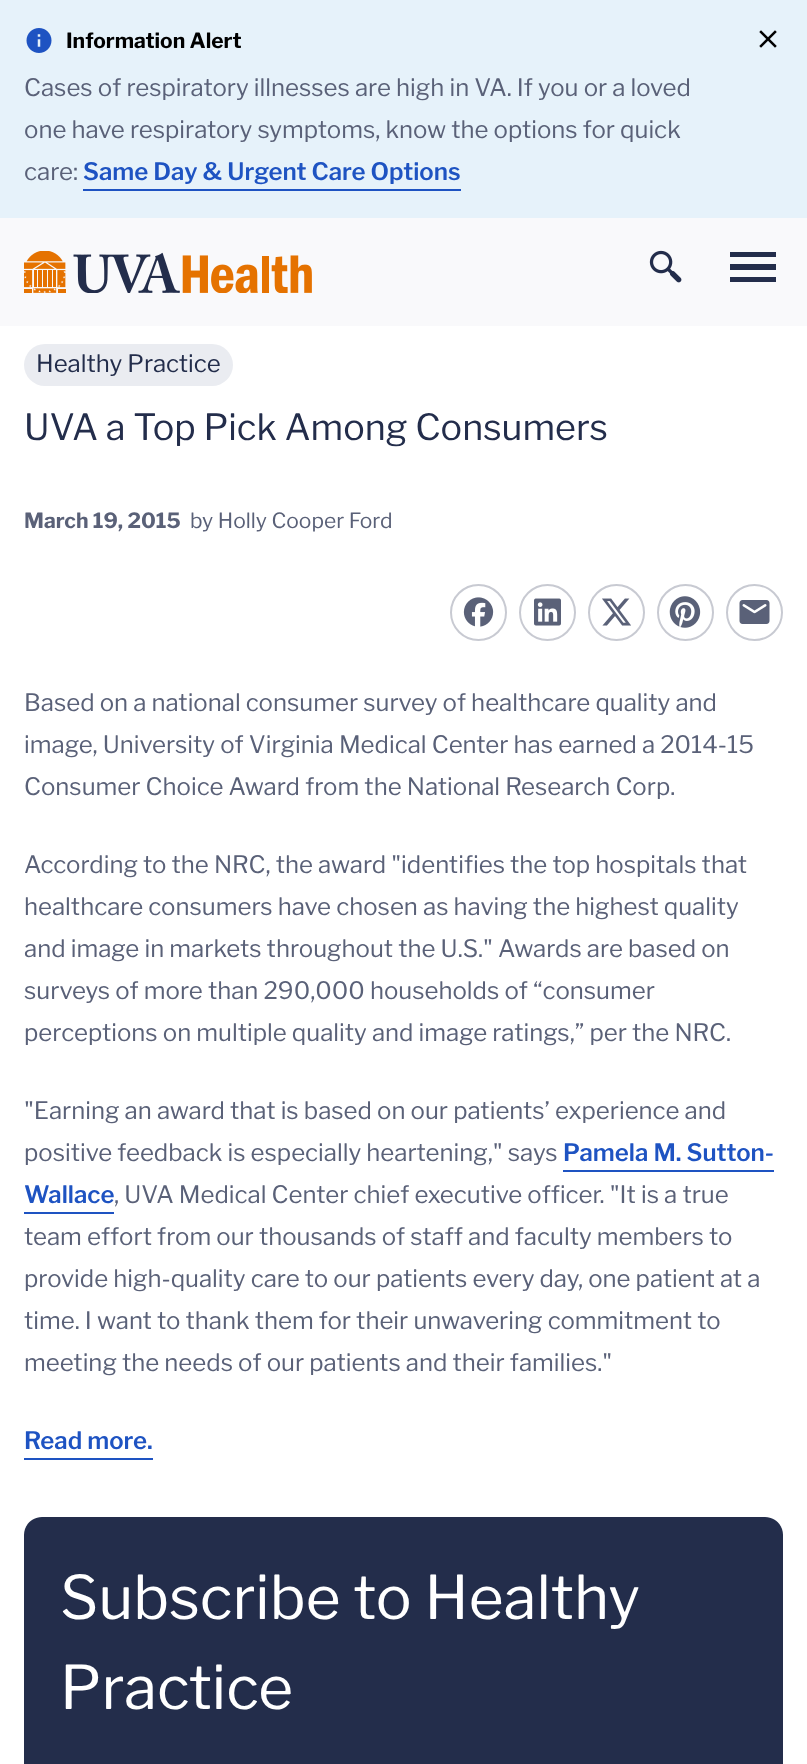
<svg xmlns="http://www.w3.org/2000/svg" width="807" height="1764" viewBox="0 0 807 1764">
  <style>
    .t1 { font: bold 21px Libre Franklin; fill: #000; }
    .t2 { font: 24px Libre Franklin; fill: #5a6178; }
    .t3 { font: 600 24px Libre Franklin; fill: #1e53c2; }
    .t4 { font: 24px Libre Franklin; fill: #232d4b; }
    .t5 { font: 36px Libre Franklin; fill: #232d4b; }
    .t6 { font: bold 21px Libre Franklin; fill: #5a6178; }
    .t7 { font: 21px Libre Franklin; fill: #5a6178; }
    .t8 { font: 60px Libre Franklin; fill: #fff; }
  </style>
  <rect width="100%" height="100%" fill="#fff"/>
  <rect x="0" y="0" width="807" height="218" fill="#e6f2fa"/>
  <image x="26" y="28" width="26" height="25" href="images/1.png"/>
  <text x="66" y="48" class="t1">Information Alert</text>
  <text x="24" y="96" class="t2">Cases of respiratory illnesses are high in VA. If you or a loved</text>
  <text x="24" y="138" class="t2">one have respiratory symptoms, know the options for quick</text>
  <text x="24" y="180" class="t2">care:</text>
  <text x="83" y="180" class="t3">Same Day &amp; Urgent Care Options</text>
  <rect x="83" y="189" width="378" height="2" fill="#1e53c2"/>
  <image x="759" y="30" width="18" height="18" href="images/2.png"/>
  <rect x="0" y="218" width="807" height="108" fill="#f9f9fb"/>
  <image x="24" y="251" width="288" height="42" href="images/3.png"/>
  <image x="649" y="250" width="33" height="33" href="images/4.png"/>
  <path d="M730 252H776V257H730ZM730 264H776V270H730ZM730 277H776V282H730Z" fill="#232d4b"/>
  <rect x="24" y="344" width="209" height="42" rx="21" fill="#eaecf1"/>
  <text x="36" y="372" class="t4">Healthy Practice</text>
  <text x="24" y="440" class="t5">UVA a Top Pick Among Consumers</text>
  <text x="24" y="528" class="t6">March 19, 2015</text>
  <text x="190" y="528" class="t7">by Holly Cooper Ford</text>
  <circle cx="478.5" cy="612.5" r="27.5" fill="none" stroke="#c8cad2" stroke-width="2"/>
  <image x="463" y="597" width="31" height="30" href="images/5.png"/>
  <circle cx="547.5" cy="612.5" r="27.5" fill="none" stroke="#c8cad2" stroke-width="2"/>
  <image x="534" y="598" width="27" height="28" href="images/6.png"/>
  <circle cx="616.5" cy="612.5" r="27.5" fill="none" stroke="#c8cad2" stroke-width="2"/>
  <image x="602" y="598" width="29" height="28" href="images/7.png"/>
  <circle cx="685.5" cy="612.5" r="27.5" fill="none" stroke="#c8cad2" stroke-width="2"/>
  <image x="669" y="596" width="32" height="32" href="images/8.png"/>
  <circle cx="754.5" cy="612.5" r="27.5" fill="none" stroke="#c8cad2" stroke-width="2"/>
  <image x="739" y="600" width="31" height="24" href="images/9.png"/>
  <text x="24" y="711" class="t2">Based on a national consumer survey of healthcare quality and</text>
  <text x="24" y="753" class="t2">image, University of Virginia Medical Center has earned a 2014-15</text>
  <text x="24" y="795" class="t2">Consumer Choice Award from the National Research Corp.</text>
  <text x="24" y="873" class="t2">According to the NRC, the award "identifies the top hospitals that</text>
  <text x="24" y="915" class="t2">healthcare consumers have chosen as having the highest quality</text>
  <text x="24" y="957" class="t2">and image in markets throughout the U.S." Awards are based on</text>
  <text x="24" y="999" class="t2">surveys of more than 290,000 households of “consumer</text>
  <text x="24" y="1041" class="t2">perceptions on multiple quality and image ratings,” per the NRC.</text>
  <text x="24" y="1119" class="t2">"Earning an award that is based on our patients’ experience and</text>
  <text x="24" y="1161" class="t2">positive feedback is especially heartening," says</text>
  <text x="563" y="1161" class="t3">Pamela M. Sutton-</text>
  <rect x="563" y="1170" width="211" height="2" fill="#1e53c2"/>
  <text x="24" y="1203" class="t3">Wallace</text>
  <rect x="24" y="1212" width="90" height="2" fill="#1e53c2"/>
  <text x="114" y="1203" class="t2">, UVA Medical Center chief executive officer. "It is a true</text>
  <text x="24" y="1245" class="t2">team effort from our thousands of staff and faculty members to</text>
  <text x="24" y="1287" class="t2">provide high-quality care to our patients every day, one patient at a</text>
  <text x="24" y="1329" class="t2">time. I want to thank them for their unwavering commitment to</text>
  <text x="24" y="1371" class="t2">meeting the needs of our patients and their families."</text>
  <text x="24" y="1449" class="t3">Read more.</text>
  <rect x="24" y="1458" width="129" height="2" fill="#1e53c2"/>
  <path d="M42 1517H765C775 1517 783 1525 783 1535V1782H24V1535C24 1525 32 1517 42 1517Z" fill="#232d4b"/>
  <text x="60" y="1619" class="t8">Subscribe to Healthy</text>
  <text x="60" y="1709" class="t8">Practice</text>
</svg>
